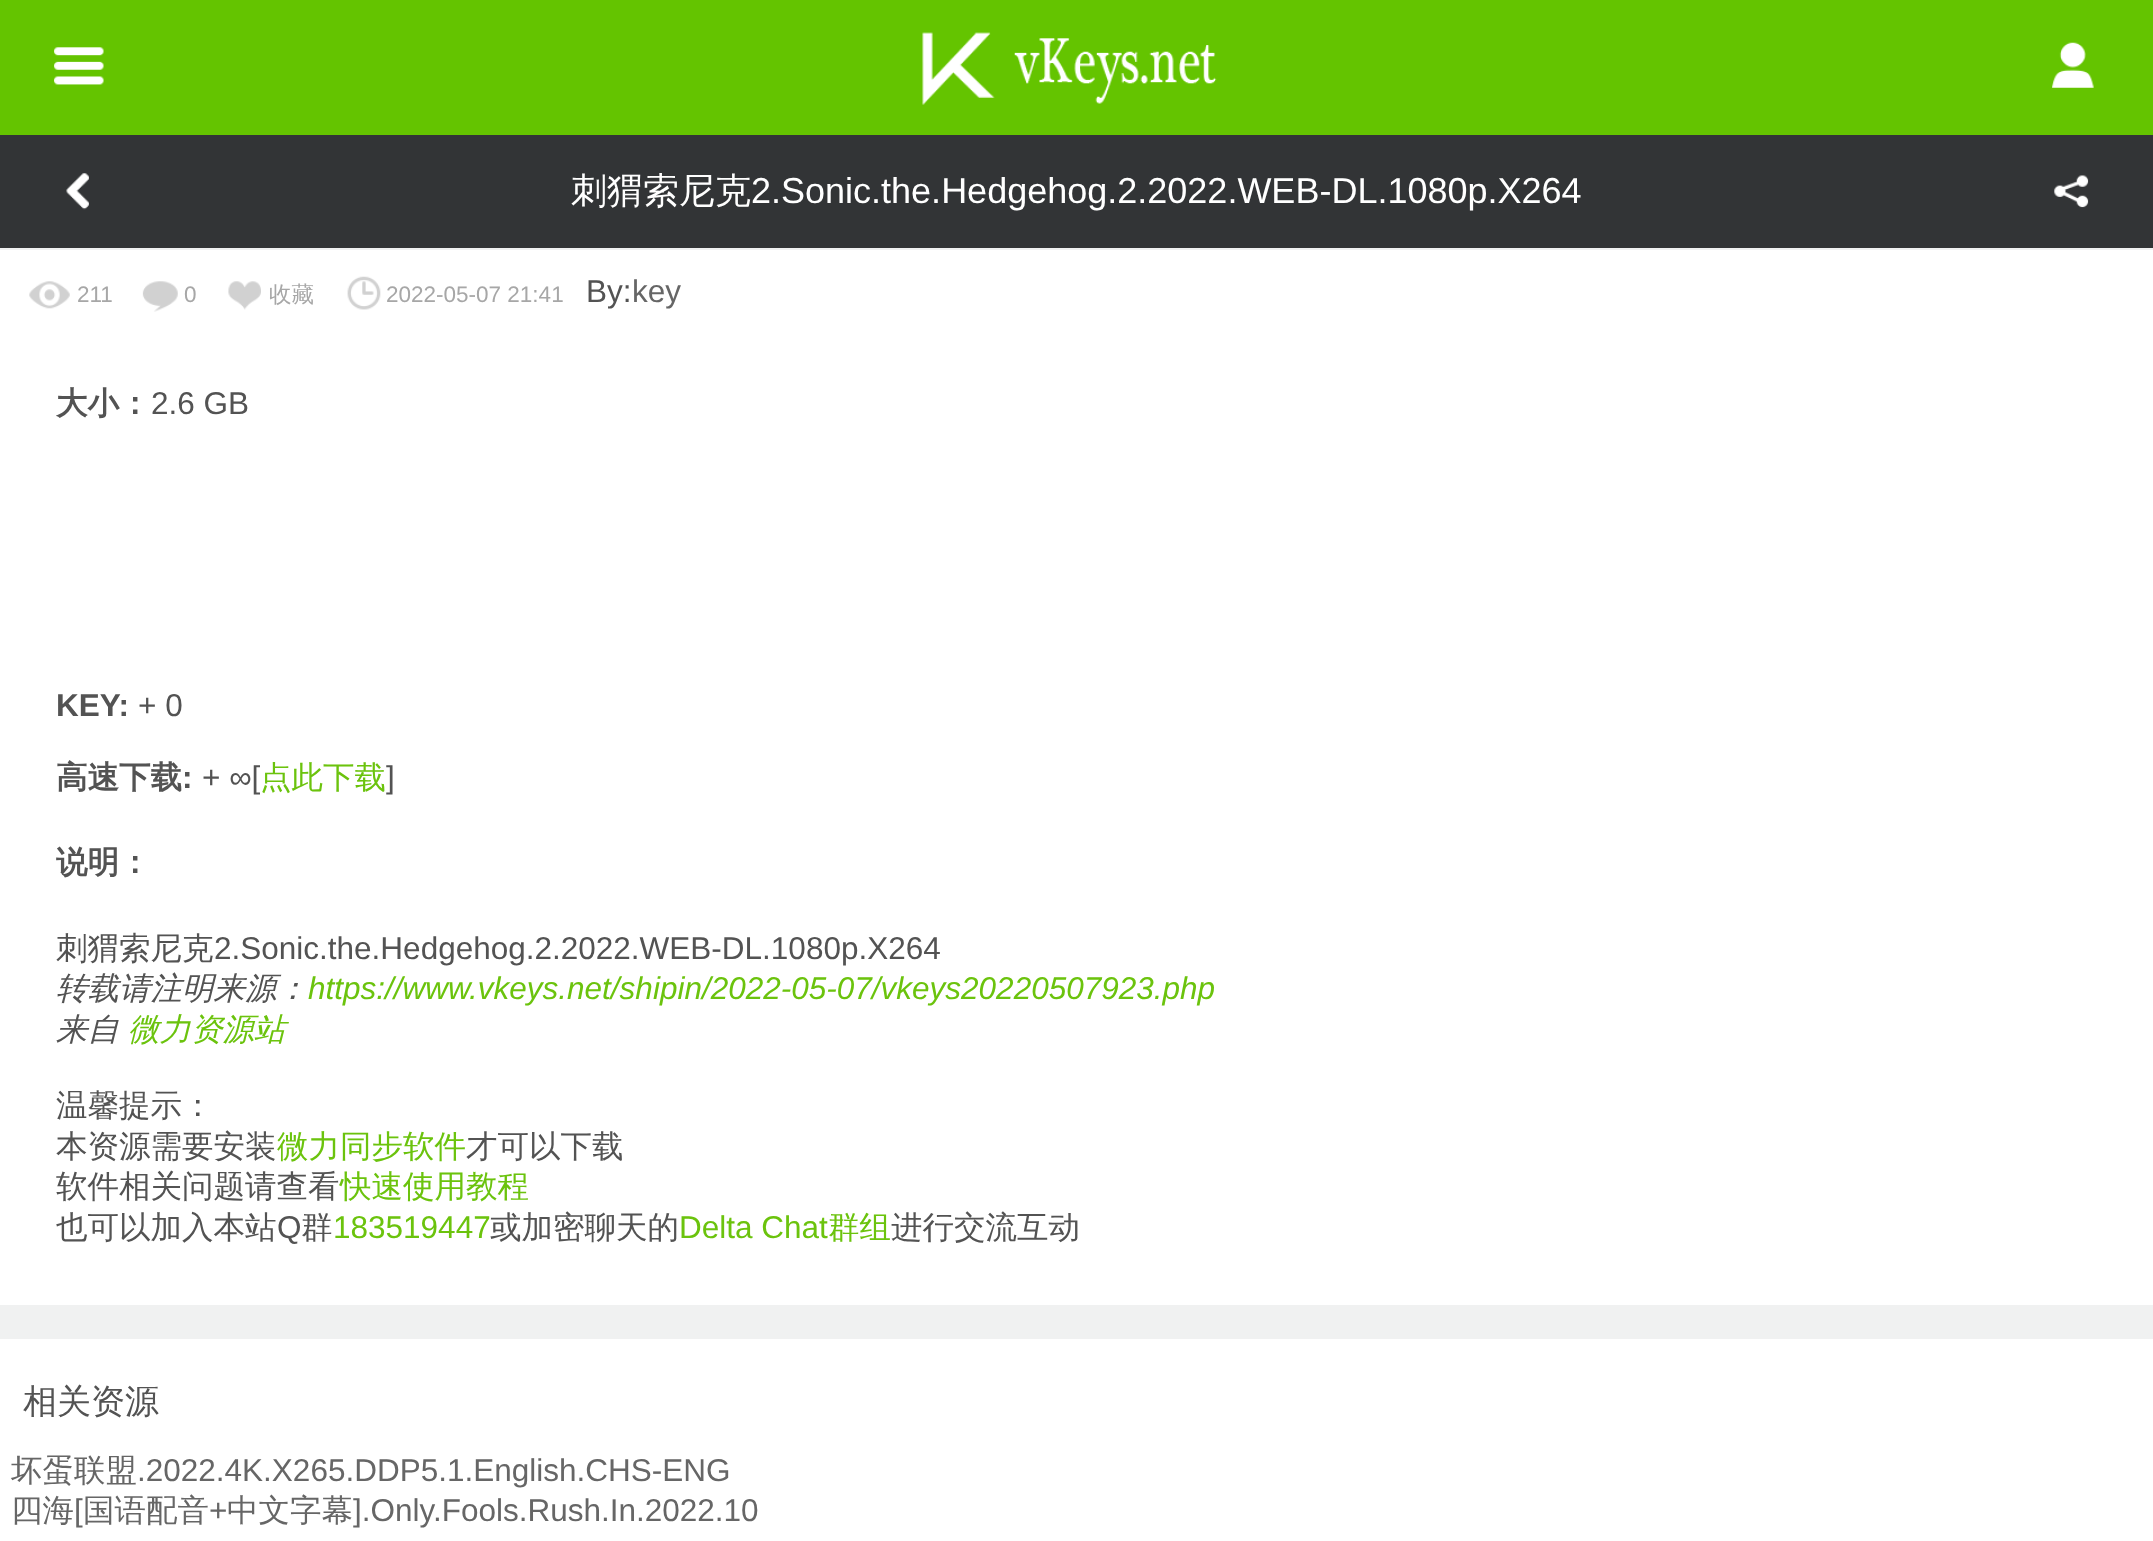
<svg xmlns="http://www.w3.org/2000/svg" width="2153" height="1541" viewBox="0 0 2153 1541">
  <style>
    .t1 { font: 500 36px WenQuanYi Zen Hei; fill: #fff; }
    .t2 { font: 36px Liberation Sans; fill: #fff; }
    .t3 { font: 22.5px Liberation Sans; fill: #a7a7a7; }
    .t4 { font: 500 22.5px WenQuanYi Zen Hei; fill: #a7a7a7; }
    .t5 { font: 31.5px Liberation Sans; fill: #535353; }
    .t6 { font: 31.5px Liberation Sans; fill: #666; }
    .t7 { font: bold 31.5px WenQuanYi Zen Hei; fill: #535353; }
    .t8 { font: bold 31.5px Liberation Sans; fill: #535353; }
    .t9 { font: 500 31.5px WenQuanYi Zen Hei; fill: #6bc30d; }
    .t10 { font: 500 31.5px WenQuanYi Zen Hei; fill: #535353; }
    .t11 { font: italic 500 31.5px WenQuanYi Zen Hei; fill: #535353; }
    .t12 { font: italic 31.5px Liberation Sans; fill: #6bc30d; }
    .t13 { font: italic 500 31.5px WenQuanYi Zen Hei; fill: #6bc30d; }
    .t14 { font: 31.5px Liberation Sans; fill: #6bc30d; }
    .t15 { font: 500 34px WenQuanYi Zen Hei; fill: #535353; }
    .t16 { font: 500 31.5px WenQuanYi Zen Hei; fill: #666; }
  </style>
  <rect width="100%" height="100%" fill="#f0f1f1"/>
  <rect x="0" y="0" width="2153" height="135" fill="#64c400"/>
  <image x="54" y="47" width="50" height="38" href="images/1.png"/>
  <image x="922" y="32" width="295" height="73" href="images/2.png"/>
  <image x="2052" y="42" width="42" height="46" href="images/3.png"/>
  <rect x="0" y="135" width="2153" height="113" fill="#323436"/>
  <image x="66" y="173" width="23" height="37" href="images/4.png"/>
  <text x="571" y="203" class="t1">刺猬索尼克</text>
  <text x="751" y="203" class="t2">2.Sonic.the.Hedgehog.2.2022.WEB-DL.1080p.X264</text>
  <image x="2054" y="175" width="35" height="33" href="images/5.png"/>
  <rect x="0" y="250" width="2153" height="1055" fill="#fff"/>
  <image x="29" y="281" width="41" height="28" href="images/6.png"/>
  <text x="77" y="302" class="t3">211</text>
  <image x="142" y="281" width="36" height="31" href="images/7.png"/>
  <text x="184" y="302" class="t3">0</text>
  <image x="228" y="281" width="33" height="29" href="images/8.png"/>
  <text x="269" y="302" class="t4">收藏</text>
  <image x="347" y="276" width="34" height="34" href="images/9.png"/>
  <text x="386" y="302" class="t3">2022-05-07 21:41</text>
  <text x="586" y="302" class="t5">By:</text>
  <text x="632" y="302" class="t6">key</text>
  <text x="56" y="414" class="t7">大小：</text>
  <text x="151" y="414" class="t5">2.6 GB</text>
  <text x="56" y="716" class="t8">KEY:</text>
  <text x="138" y="716" class="t5">+ 0</text>
  <text x="56" y="788" class="t7">高速下载</text>
  <text x="182" y="788" class="t8">:</text>
  <text x="202" y="788" class="t5">+ ∞[</text>
  <text x="260" y="788" class="t9">点此下载</text>
  <text x="386" y="788" class="t5">]</text>
  <text x="56" y="873" class="t7">说明：</text>
  <text x="56" y="959" class="t10">刺猬索尼克</text>
  <text x="214" y="959" class="t5">2.Sonic.the.Hedgehog.2.2022.WEB-DL.1080p.X264</text>
  <text x="56" y="999" class="t11">转载请注明来源：</text>
  <text x="308" y="999" class="t12">https://www.vkeys.net/shipin/2022-05-07/vkeys20220507923.php</text>
  <text x="56" y="1040" class="t11">来自</text>
  <text x="128" y="1040" class="t13">微力资源站</text>
  <text x="56" y="1116" class="t10">温馨提示：</text>
  <text x="56" y="1157" class="t10">本资源需要安装</text>
  <text x="277" y="1157" class="t9">微力同步软件</text>
  <text x="466" y="1157" class="t10">才可以下载</text>
  <text x="56" y="1197" class="t10">软件相关问题请查看</text>
  <text x="340" y="1197" class="t9">快速使用教程</text>
  <text x="56" y="1238" class="t10">也可以加入本站</text>
  <text x="277" y="1238" class="t5">Q</text>
  <text x="301" y="1238" class="t10">群</text>
  <text x="333" y="1238" class="t14">183519447</text>
  <text x="490" y="1238" class="t10">或加密聊天的</text>
  <text x="679" y="1238" class="t14">Delta Chat</text>
  <text x="828" y="1238" class="t9">群组</text>
  <text x="891" y="1238" class="t10">进行交流互动</text>
  <rect x="0" y="1339" width="2153" height="202" fill="#fff"/>
  <text x="23" y="1413" class="t15">相关资源</text>
  <text x="11" y="1481" class="t16">坏蛋联盟</text>
  <text x="137" y="1481" class="t6">.2022.4K.X265.DDP5.1.English.CHS-ENG</text>
  <text x="11" y="1521" class="t16">四海</text>
  <text x="74" y="1521" class="t6">[</text>
  <text x="83" y="1521" class="t16">国语配音</text>
  <text x="209" y="1521" class="t6">+</text>
  <text x="227" y="1521" class="t16">中文字幕</text>
  <text x="353" y="1521" class="t6">].Only.Fools.Rush.In.2022.10</text>
</svg>
